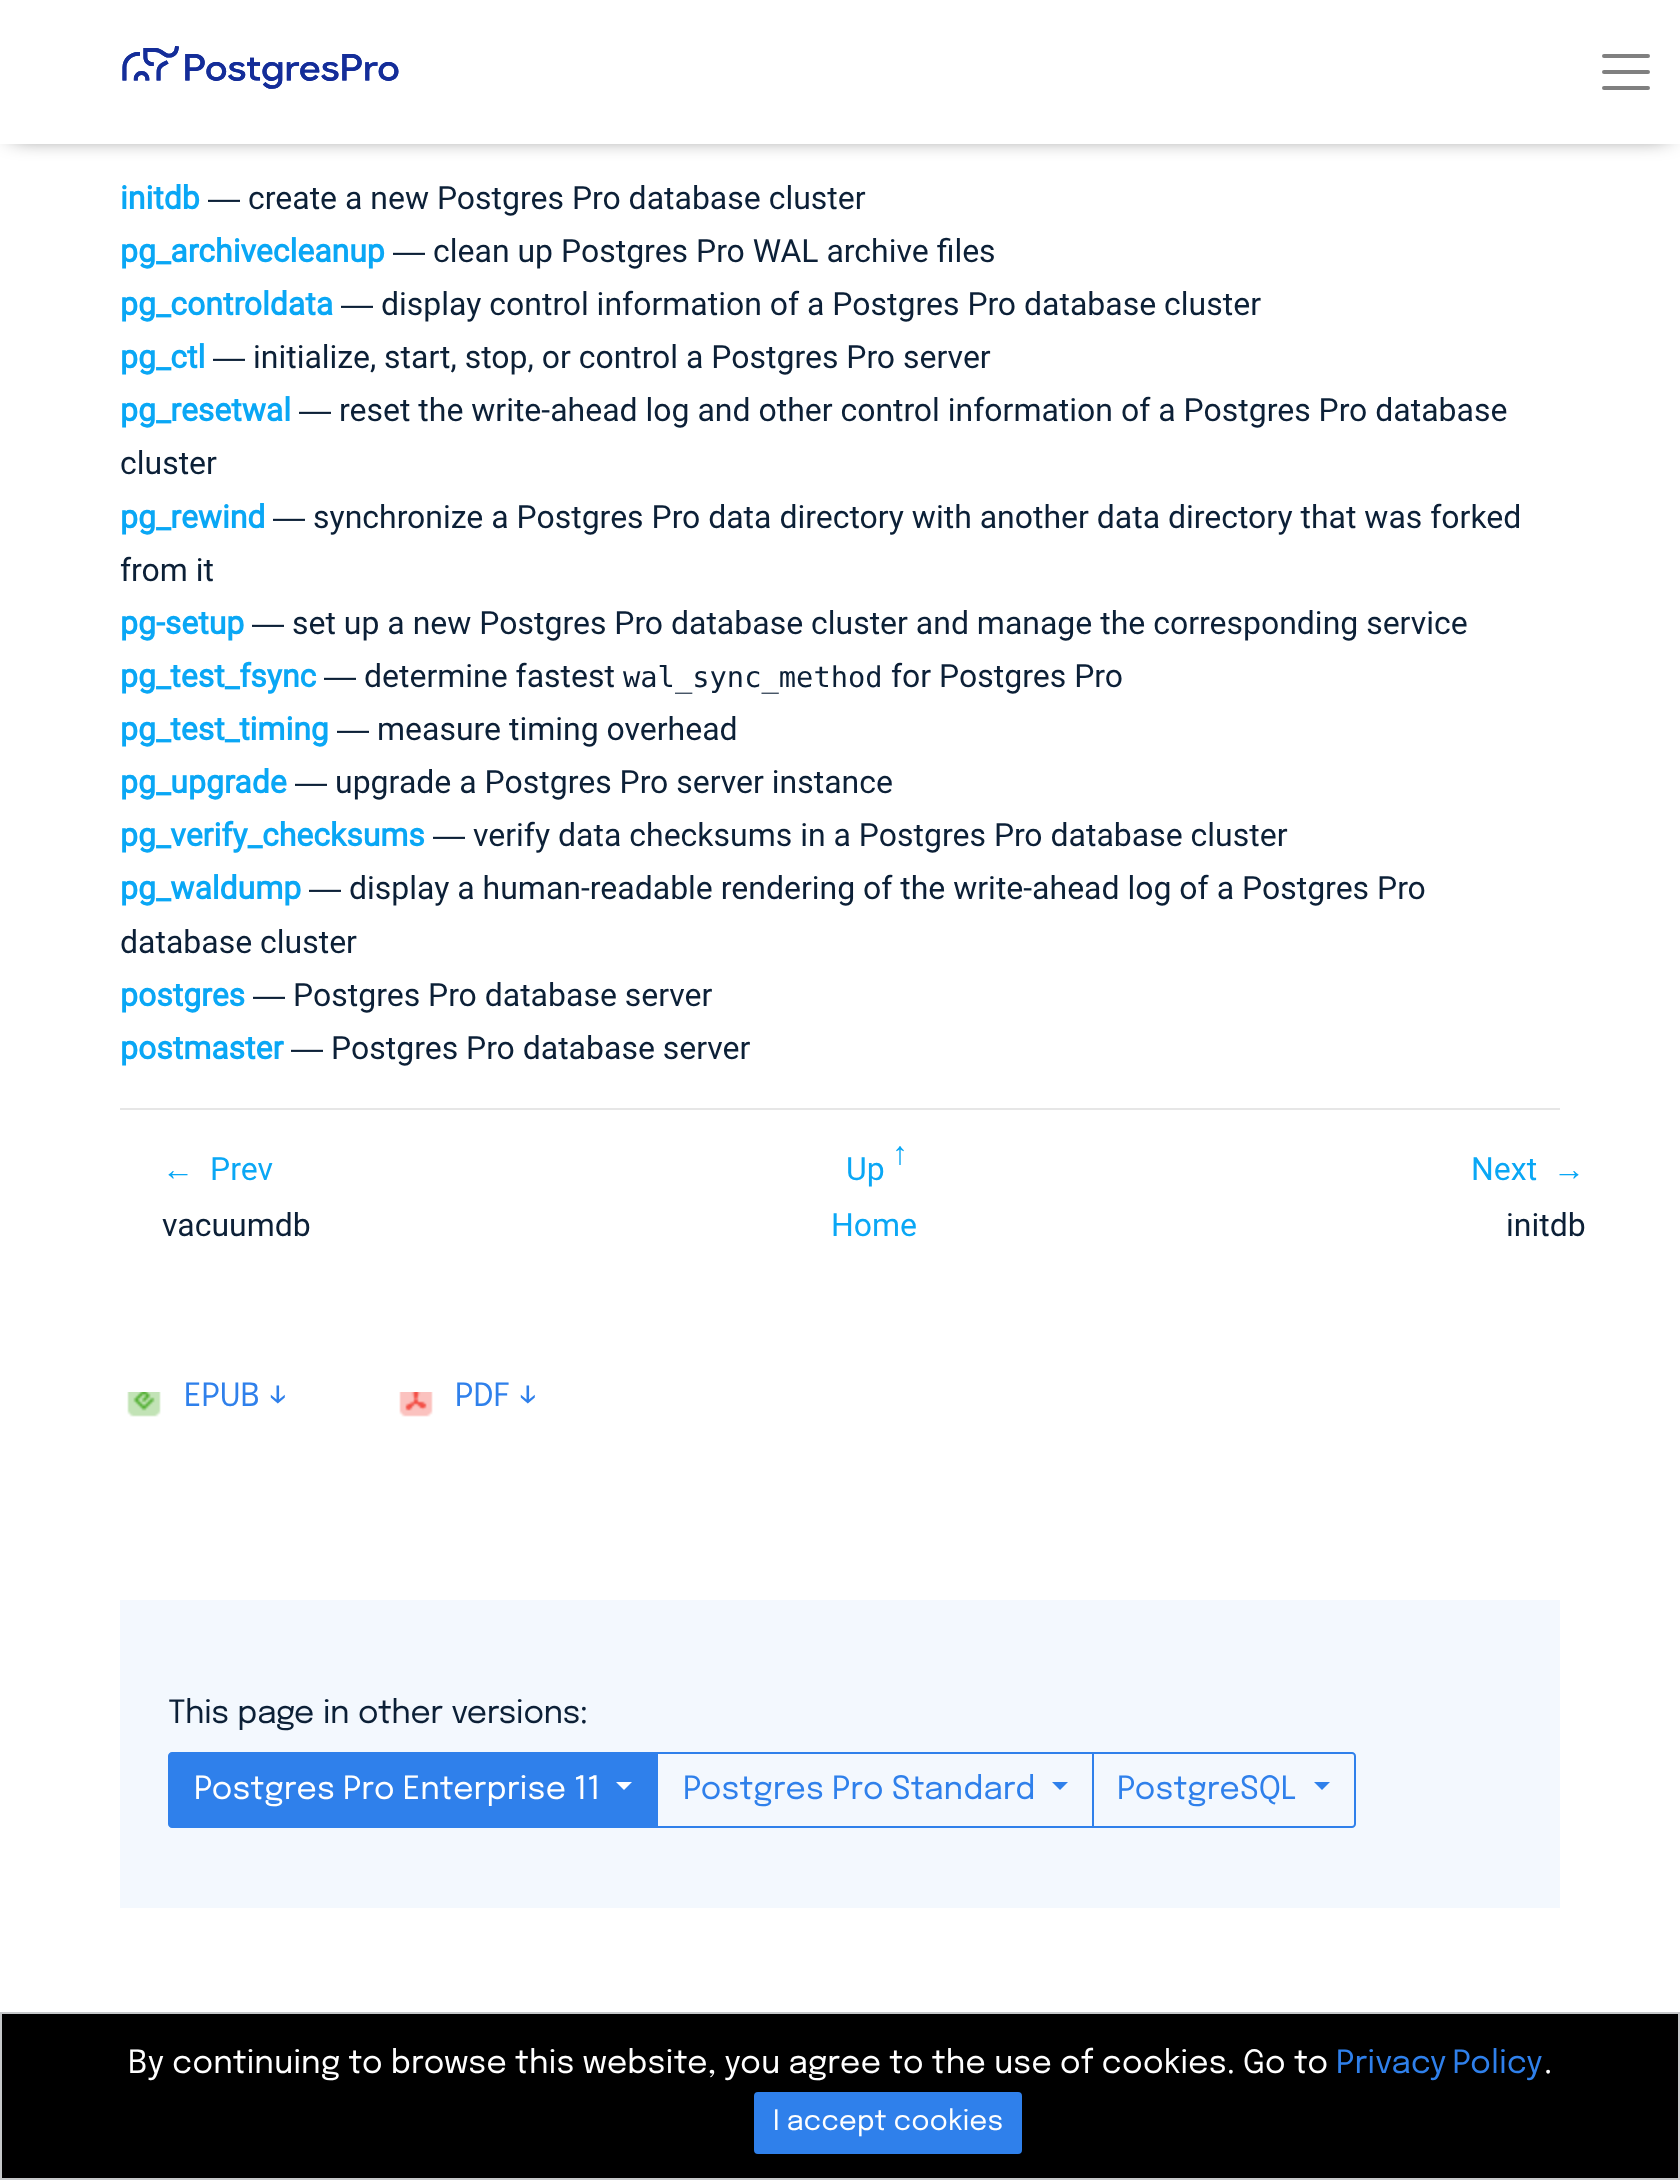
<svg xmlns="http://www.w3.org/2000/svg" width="1680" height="2180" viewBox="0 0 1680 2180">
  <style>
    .t1 { font: bold 32px Roboto; fill: #0aa7f5; }
    .t2 { font: 32px Liberation Sans; fill: #0c2037; }
    .t3 { font: 32px Roboto; fill: #0c2037; }
    .t4 { font: 28.75px DejaVu Sans Mono; fill: #0c2037; }
    .t5 { font: 32px Liberation Sans; fill: #0aa7f5; }
    .t6 { font: 32px Roboto; fill: #0aa7f5; }
    .t7 { font: 32px Epilogue; fill: #2f80eb; }
    .t8 { font: 32px Epilogue; letter-spacing: -0.65px; fill: #0c2037; }
    .t9 { font: 32px Epilogue; fill: #fff; }
    .t10 { font: 28px Epilogue; fill: #fff; }
  </style>
  <rect width="100%" height="100%" fill="#fff"/>
  <rect x="12" y="12" width="1656" height="120" fill="#000" filter="blur(12px)"/>
  <rect x="0" y="0" width="1680" height="144" fill="#fff"/>
  <image x="122" y="46" width="277" height="43" href="images/1.png"/>
  <path d="M1604 56H1648M1604 72H1648M1604 88H1648" fill="none" stroke="#808080" stroke-width="4" stroke-linecap="round"/>
  <text x="120" y="209" class="t1">initdb</text>
  <text x="208" y="209" class="t2">—</text>
  <text x="248" y="209" class="t3">create a new Postgres Pro database cluster</text>
  <text x="120" y="262" class="t1">pg_archivecleanup</text>
  <text x="393" y="262" class="t2">—</text>
  <text x="433" y="262" class="t3">clean up Postgres Pro WAL archive files</text>
  <text x="120" y="315" class="t1">pg_controldata</text>
  <text x="341" y="315" class="t2">—</text>
  <text x="381" y="315" class="t3">display control information of a Postgres Pro database cluster</text>
  <text x="120" y="368" class="t1">pg_ctl</text>
  <text x="213" y="368" class="t2">—</text>
  <text x="253" y="368" class="t3">initialize, start, stop, or control a Postgres Pro server</text>
  <text x="120" y="421" class="t1">pg_resetwal</text>
  <text x="299" y="421" class="t2">—</text>
  <text x="339" y="421" class="t3">reset the write-ahead log and other control information of a Postgres Pro database</text>
  <text x="120" y="474" class="t3">cluster</text>
  <text x="120" y="528" class="t1">pg_rewind</text>
  <text x="273" y="528" class="t2">—</text>
  <text x="313" y="528" class="t3">synchronize a Postgres Pro data directory with another data directory that was forked</text>
  <text x="120" y="581" class="t3">from it</text>
  <text x="120" y="634" class="t1">pg-setup</text>
  <text x="252" y="634" class="t2">—</text>
  <text x="292" y="634" class="t3">set up a new Postgres Pro database cluster and manage the corresponding service</text>
  <text x="120" y="687" class="t1">pg_test_fsync</text>
  <text x="324" y="687" class="t2">—</text>
  <text x="364" y="687" class="t3">determine fastest</text>
  <text x="623" y="687" class="t4">wal_sync_method</text>
  <text x="891" y="687" class="t3">for Postgres Pro</text>
  <text x="120" y="740" class="t1">pg_test_timing</text>
  <text x="337" y="740" class="t2">—</text>
  <text x="377" y="740" class="t3">measure timing overhead</text>
  <text x="120" y="793" class="t1">pg_upgrade</text>
  <text x="295" y="793" class="t2">—</text>
  <text x="335" y="793" class="t3">upgrade a Postgres Pro server instance</text>
  <text x="120" y="846" class="t1">pg_verify_checksums</text>
  <text x="433" y="846" class="t2">—</text>
  <text x="473" y="846" class="t3">verify data checksums in a Postgres Pro database cluster</text>
  <text x="120" y="899" class="t1">pg_waldump</text>
  <text x="309" y="899" class="t2">—</text>
  <text x="349" y="899" class="t3">display a human-readable rendering of the write-ahead log of a Postgres Pro</text>
  <text x="120" y="953" class="t3">database cluster</text>
  <text x="120" y="1006" class="t1">postgres</text>
  <text x="253" y="1006" class="t2">—</text>
  <text x="293" y="1006" class="t3">Postgres Pro database server</text>
  <text x="120" y="1059" class="t1">postmaster</text>
  <text x="291" y="1059" class="t2">—</text>
  <text x="331" y="1059" class="t3">Postgres Pro database server</text>
  <rect x="120" y="1108" width="1440" height="2" fill="#e6e6e6"/>
  <text x="162" y="1180" class="t5">←</text>
  <text x="210" y="1180" class="t6">Prev</text>
  <text x="846" y="1180" class="t6">Up</text>
  <text x="892" y="1164" class="t5">↑</text>
  <text x="1471" y="1180" class="t6">Next</text>
  <text x="1553" y="1180" class="t5">→</text>
  <text x="162" y="1236" class="t3">vacuumdb</text>
  <text x="831" y="1236" class="t6">Home</text>
  <text x="1506" y="1236" class="t3">initdb</text>
  <image x="127" y="1392" width="34" height="25" href="images/2.png"/>
  <text x="184" y="1406" class="t7">EPUB ↓</text>
  <image x="399" y="1392" width="34" height="25" href="images/3.png"/>
  <text x="455" y="1406" class="t7">PDF ↓</text>
  <rect x="120" y="1600" width="1440" height="308" fill="#f3f8fe"/>
  <text x="168" y="1723" word-spacing="1.5" class="t8">This page in other versions:</text>
  <rect x="657" y="1753" width="436" height="74" fill="none" stroke="#2f80eb" stroke-width="2"/>
  <path d="M172 1753H657V1827H172C170.5 1827 169 1825.5 169 1824V1756C169 1754.5 170.5 1753 172 1753Z" fill="#2f80eb" stroke="#2f80eb" stroke-width="2"/>
  <text x="194" y="1799" class="t9">Postgres Pro Enterprise 11</text>
  <path d="M616 1782H632L624 1790Z" fill="#fff"/>
  <text x="683" y="1799" class="t7">Postgres Pro Standard</text>
  <path d="M1052 1782H1068L1060 1790Z" fill="#2f80eb"/>
  <path d="M1093 1753H1352C1353.5 1753 1355 1754.5 1355 1756V1824C1355 1825.5 1353.5 1827 1352 1827H1093Z" fill="#f3f8fe" stroke="#2f80eb" stroke-width="2"/>
  <text x="1117" y="1799" class="t7">PostgreSQL</text>
  <path d="M1314 1782H1330L1322 1790Z" fill="#2f80eb"/>
  <rect x="1" y="2013" width="1678" height="166" fill="#000" stroke="#c6c8ca" stroke-width="2"/>
  <text x="128" y="2073" class="t9">By continuing to browse this website, you agree to the use of cookies. Go to</text>
  <text x="1336" y="2073" word-spacing="-2" class="t7">Privacy Policy</text>
  <text x="1544" y="2073" class="t9">.</text>
  <rect x="755" y="2093" width="266" height="60" rx="3" fill="#2f80eb" stroke="#2f80eb" stroke-width="2"/>
  <text x="773" y="2130" class="t10">I accept cookies</text>
</svg>
